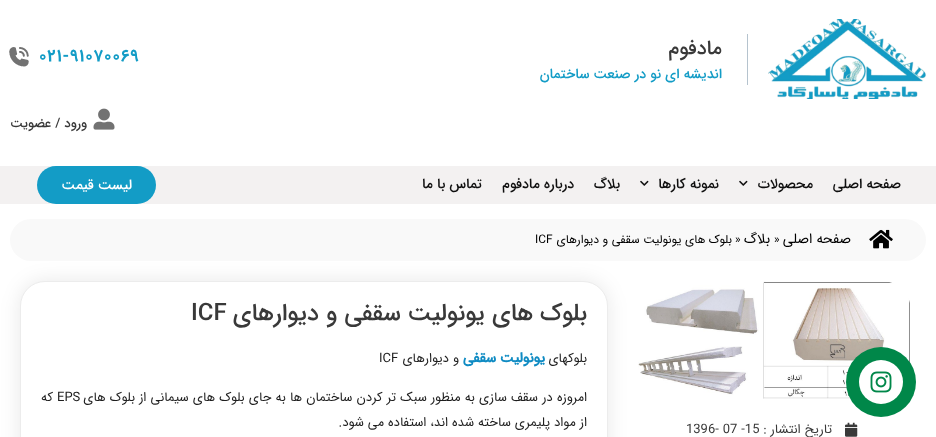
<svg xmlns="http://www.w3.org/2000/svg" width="936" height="437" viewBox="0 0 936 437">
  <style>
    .t1 { font: 500 20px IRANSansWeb; direction: rtl; fill: #393939; }
    .t2 { font: 500 14px IRANSansWeb; direction: rtl; fill: #139cc6; }
    .t3 { font: bold 17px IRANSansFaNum; letter-spacing: 1px; fill: #139cc6; }
    .t4 { font: 500 13px IRANSansWeb; direction: rtl; fill: #393939; }
    .t5 { font: 500 14px IRANSansWeb; direction: rtl; fill: #0f0f0f; }
    .t6 { font: 500 14px IRANSansWeb; direction: rtl; fill: #fff; }
    .t7 { font: 14px IRANSansWeb; direction: rtl; fill: #000; }
    .t8 { font: 11.9px IRANSansWeb; fill: #000; }
    .t9 { font: 11.9px IRANSansWeb; direction: rtl; fill: #000; }
    .t10 { font: 13px IRANSansWeb; direction: rtl; fill: #393939; }
    .t11 { font: 13px IRANSansWeb; fill: #393939; }
    .t12 { font: 500 24px IRANSansWeb; direction: rtl; fill: #393939; }
    .t13 { font: 500 24px IRANSansWeb; fill: #393939; }
    .t14 { font: 13px IRANSansWeb; direction: rtl; fill: #1e1e1e; }
    .t15 { font: bold 14px IRANSansWeb; direction: rtl; fill: #0f8bc3; }
    .t16 { font: 13px IRANSansWeb; fill: #1e1e1e; }
  </style>
  <rect width="100%" height="100%" fill="#fff"/>
  <image x="768" y="19" width="159" height="80" href="images/1.png"/>
  <rect x="747" y="34" width="1" height="51" fill="#b5c3ce"/>
  <text x="722" y="54" class="t1">مادفوم</text>
  <text x="722" y="78" class="t2">اندیشه ای نو در صنعت ساختمان</text>
  <text x="39" y="61" class="t3">021-91070069</text>
  <image x="9" y="47" width="20" height="20" href="images/2.png"/>
  <image x="93" y="108" width="22" height="22" href="images/3.png"/>
  <text x="87" y="127" class="t4">ورود / عضویت</text>
  <rect x="0" y="166" width="936" height="38" fill="#f3f1f1"/>
  <text x="901" y="188" class="t5">صفحه اصلی</text>
  <text x="813" y="188" class="t5">محصولات</text>
  <image x="739" y="180" width="9" height="6" href="images/4.png"/>
  <text x="719" y="188" class="t5">نمونه کارها</text>
  <image x="640" y="180" width="9" height="6" href="images/4.png"/>
  <text x="620" y="188" class="t5">بلاگ</text>
  <text x="574" y="188" class="t5">درباره مادفوم</text>
  <text x="482" y="188" class="t5">تماس با ما</text>
  <rect x="37" y="166" width="119" height="38" rx="19" fill="#139cc6"/>
  <text x="132" y="189" class="t6">لیست قیمت</text>
  <image x="638" y="281" width="272" height="118" href="images/7.png"/>
  <circle cx="881" cy="382" r="35" fill="#008749"/>
  <circle cx="881" cy="382" r="22" fill="#fff"/>
  <image x="870" y="371" width="22" height="22" href="images/5.png"/>
  <rect x="10" y="219" width="916" height="42" rx="21" fill="#f9f9f9"/>
  <image x="869" y="229" width="24" height="20" href="images/6.png"/>
  <text x="851" y="243" class="t7">صفحه اصلی</text>
  <text x="774" y="243" class="t8">»</text>
  <text x="770" y="243" class="t7">بلاگ</text>
  <text x="735" y="243" class="t8">»</text>
  <text x="732" y="243" class="t9">بلوک های یونولیت سقفی و دیوارهای</text>
  <text x="535" y="243" class="t8">ICF</text>
  <image x="845" y="422" width="13" height="15" href="images/8.png"/>
  <text x="832" y="433" class="t10">تاریخ انتشار :</text>
  <text x="686" y="433" class="t11">1396- 07 -15</text>
  <rect x="20" y="281" width="588" height="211" rx="25" fill="#00000017" filter="blur(10px)"/>
  <rect x="20.5" y="281.5" width="587" height="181" rx="24.5" fill="#fff" stroke="#ececec"/>
  <text x="587" y="320" class="t12">بلوک های یونولیت سقفی و دیوارهای</text>
  <text x="191" y="320" class="t13">ICF</text>
  <text x="587" y="362" class="t14">بلوکهای</text>
  <text x="545" y="362" class="t15">یونولیت سقفی</text>
  <text x="459" y="362" class="t14">و دیوارهای</text>
  <text x="379" y="362" class="t16">ICF</text>
  <text x="587" y="401" word-spacing="0.25" class="t14">امروزه در سقف سازی به منظور سبک تر کردن ساختمان ها به جای بلوک های سیمانی از بلوک های</text>
  <text x="57" y="401" class="t16">EPS</text>
  <text x="53" y="401" class="t14">که</text>
  <text x="587" y="426" class="t14">از مواد پلیمری ساخته شده اند، استفاده می شود.</text>
</svg>
